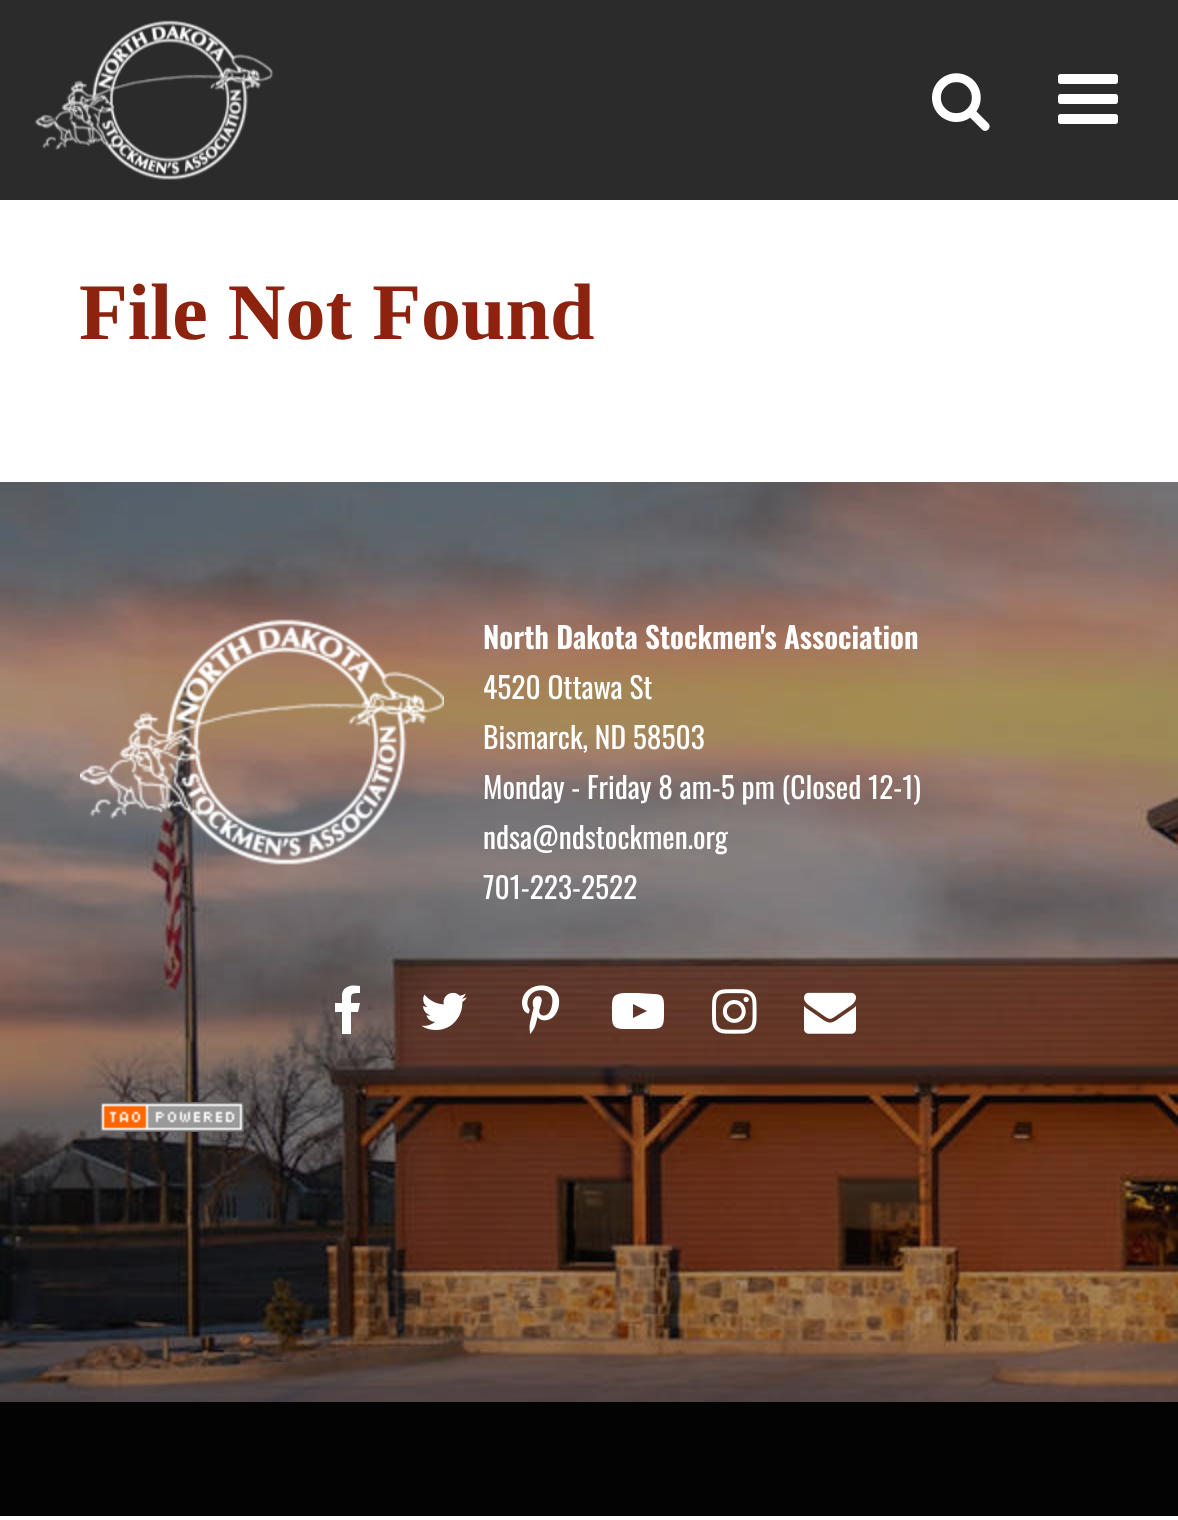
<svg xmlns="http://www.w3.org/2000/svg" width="1178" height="1520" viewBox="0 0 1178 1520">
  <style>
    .t1 { font: bold 80px Liberation Serif; fill: #8d230f; }
    .t2 { font: 600 29.5px Oswald; fill: #fff; }
    .t3 { font: 29.5px Oswald; fill: #fff; }
  </style>
  <rect width="100%" height="100%" fill="#fff"/>
  <rect x="0" y="0" width="1178" height="200" fill="#2b2b2b"/>
  <image x="35" y="20" width="239" height="160" href="images/1.png"/>
  <image x="932" y="73" width="58" height="58" href="images/2.png"/>
  <image x="1058" y="74" width="60" height="50" href="images/3.png"/>
  <text x="79" y="339" class="t1">File Not Found</text>
  <rect x="0" y="1402" width="1178" height="114" fill="#030303"/>
  <image x="0" y="482" width="1178" height="920" href="images/4.png"/>
  <image x="80" y="619" width="364" height="246" href="images/5.png"/>
  <text x="483" y="649" class="t2">North Dakota Stockmen's Association</text>
  <text x="483" y="699" class="t3">4520 Ottawa St</text>
  <text x="483" y="749" class="t3">Bismarck, ND 58503</text>
  <text x="483" y="799" class="t3">Monday - Friday 8 am-5 pm (Closed 12-1)</text>
  <text x="483" y="849" class="t3">ndsa@ndstockmen.org</text>
  <text x="483" y="899" class="t3">701-223-2522</text>
  <path d="M360 986V993C350 993 351 994 351 1003H360L358 1012H351V1034H342V1012H335V1003H342V994C344 985 353 985 360 986Z" fill="#fff"/>
  <image x="421" y="992" width="46" height="38" href="images/6.png"/>
  <image x="522" y="985" width="38" height="49" href="images/7.png"/>
  <path d="M633 1018L647 1011L633 1004ZM638 993L654 994C665 994 664 1000 664 1011C664 1025 664 1029 652 1029H623C611 1029 612 1022 612 1011C612 998 612 994 624 993Z" fill="#fff"/>
  <image x="712" y="989" width="45" height="45" href="images/8.png"/>
  <image x="804" y="992" width="52" height="42" href="images/9.png"/>
  <image x="100" y="1102" width="144" height="30" href="images/10.png"/>
</svg>
